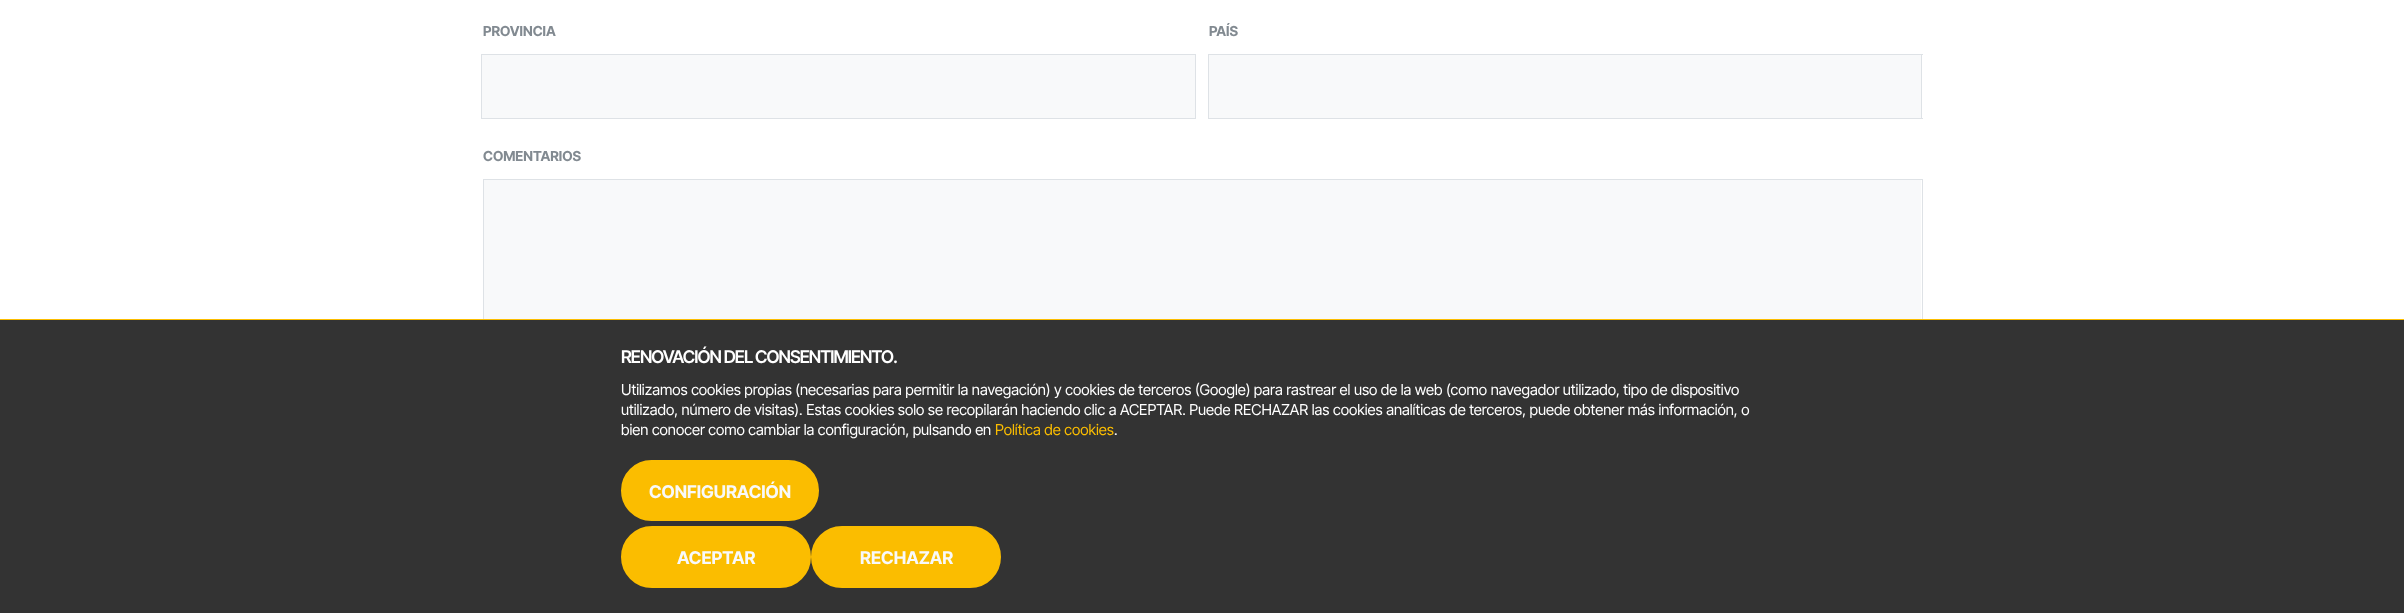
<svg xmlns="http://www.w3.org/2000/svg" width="2404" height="613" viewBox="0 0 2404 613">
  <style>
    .t1 { font: bold 13.75px Inter Tight; fill: #828a91; }
    .t2 { font: 600 17.5px Inter Tight; letter-spacing: -0.9px; fill: #fff; }
    .t3 { font: 15px Inter Tight; fill: #fff; }
    .t4 { font: 15px Inter Tight; fill: #fbbd00; }
    .t5 { font: bold 17.5px Inter Tight; fill: #f8f9fa; }
  </style>
  <rect width="100%" height="100%" fill="#fff"/>
  <text x="483" y="36" class="t1">PROVINCIA</text>
  <rect x="482" y="55" width="713" height="63" fill="#f8f9fa"/>
  <rect x="481" y="54" width="715" height="1" fill="#dee2e6"/>
  <rect x="481" y="118" width="32" height="1" fill="#dee2e6"/>
  <rect x="481" y="54" width="1" height="65" fill="#dee2e6"/>
  <rect x="1195" y="54" width="1" height="65" fill="#dee2e6"/>
  <rect x="513" y="118" width="683" height="1" fill="#dee2e6"/>
  <text x="1209" y="36" class="t1">PAÍS</text>
  <rect x="1209" y="55" width="712" height="63" fill="#f8f9fa"/>
  <rect x="1208" y="54" width="715" height="1" fill="#dee2e6"/>
  <rect x="1208" y="118" width="31" height="1" fill="#dee2e6"/>
  <rect x="1208" y="54" width="1" height="65" fill="#dee2e6"/>
  <rect x="1921" y="54" width="1" height="65" fill="#dee2e6"/>
  <rect x="1239" y="118" width="684" height="1" fill="#dee2e6"/>
  <text x="483" y="161" class="t1">COMENTARIOS</text>
  <rect x="484" y="180" width="1437" height="139" fill="#f8f9fa"/>
  <rect x="483.5" y="179.5" width="1439" height="200" fill="none" stroke="#dee2e6"/>
  <rect x="0" y="320" width="2404" height="293" fill="#333"/>
  <rect x="0" y="319" width="2404" height="1" fill="#fbbd00"/>
  <text x="621" y="363" class="t2">RENOVACIÓN DEL CONSENTIMIENTO</text>
  <text x="893" y="363" class="t2">.</text>
  <text x="621" y="395" class="t3">Utilizamos cookies propias (necesarias para permitir la navegación) y cookies de terceros (Google) para rastrear el uso de la web (como navegador utilizado, tipo de dispositivo</text>
  <text x="621" y="415" class="t3">utilizado, número de visitas). Estas cookies solo se recopilarán haciendo clic a ACEPTAR. Puede RECHAZAR las cookies analíticas de terceros, puede obtener más información, o</text>
  <text x="621" y="435" class="t3">bien conocer como cambiar la configuración, pulsando en</text>
  <text x="995" y="435" class="t4">Política de cookies</text>
  <text x="1114" y="435" class="t3">.</text>
  <rect x="622.5" y="461.5" width="195" height="58" rx="29" fill="#fbbd00" stroke="#fbbd00" stroke-width="3"/>
  <text x="649" y="498" class="t5">CONFIGURACIÓN</text>
  <rect x="622.5" y="527.5" width="187" height="59" rx="29.5" fill="#fbbd00" stroke="#fbbd00" stroke-width="3"/>
  <text x="677" y="564" class="t5">ACEPTAR</text>
  <rect x="812.5" y="527.5" width="187" height="59" rx="29.5" fill="#fbbd00" stroke="#fbbd00" stroke-width="3"/>
  <text x="860" y="564" class="t5">RECHAZAR</text>
</svg>
